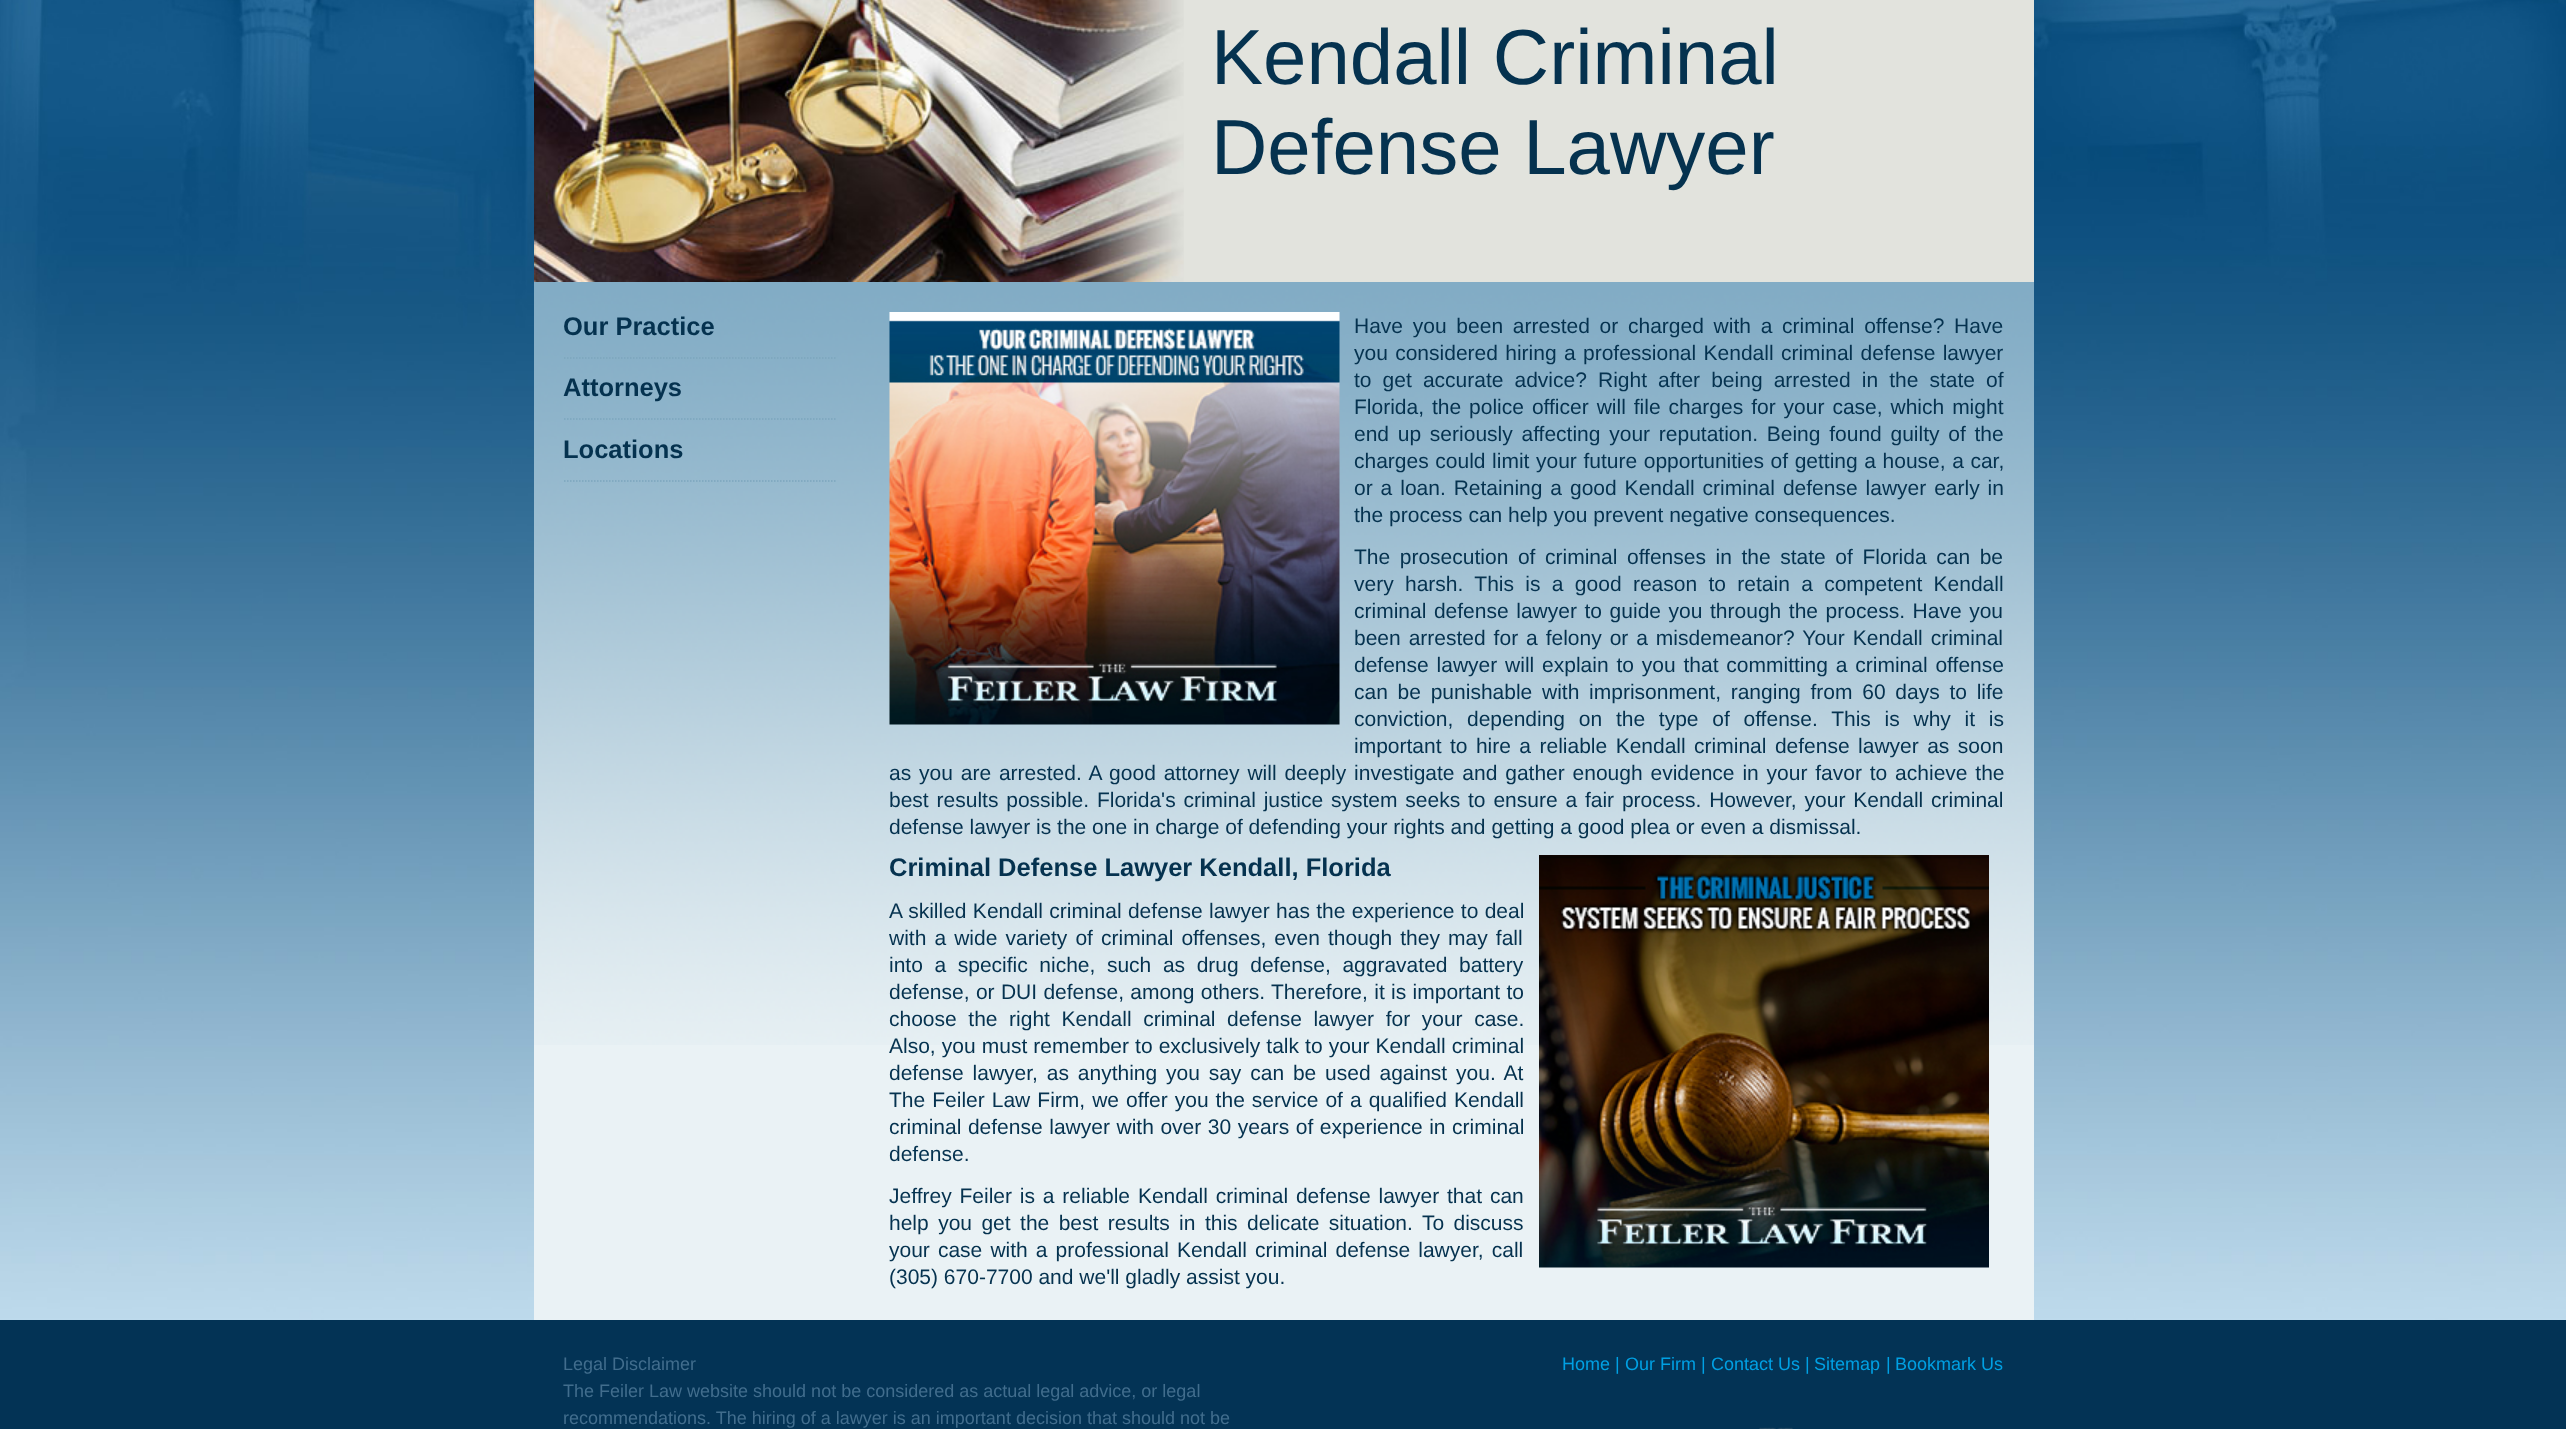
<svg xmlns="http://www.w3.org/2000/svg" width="2566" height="1429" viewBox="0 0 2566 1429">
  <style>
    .t1 { font: 78px Liberation Sans; fill: #05324f; }
    .t2 { font: bold 25.5px Liberation Sans; fill: #05324f; }
    .t3 { font: 21px Liberation Sans; fill: #05324f; }
    .t4 { font: 18px Liberation Sans; fill: #416d8d; }
    .t5 { font: 18px Liberation Sans; fill: #00a0e3; }
  </style>
  <rect width="100%" height="100%" fill="#fff"/>
  <image x="0" y="0" width="2566" height="1320" href="images/1.png"/>
  <rect x="1184" y="0" width="850" height="282" fill="#e2e3dd"/>
  <image x="534" y="0" width="650" height="282" href="images/2.png"/>
  <text x="1211" y="84" class="t1">Kendall Criminal</text>
  <text x="1211" y="174" class="t1">Defense Lawyer</text>
  <rect x="534" y="1045" width="1500" height="275" fill="#eaf2f5"/>
  <image x="534" y="282" width="1500" height="763" href="images/3.png"/>
  <path d="M564 358H837" fill="none" stroke="#7ca5bd" stroke-width="1.5" stroke-dasharray="1.5 1.5"/>
  <text x="563" y="335" class="t2">Our Practice</text>
  <path d="M564 419H837" fill="none" stroke="#7ca5bd" stroke-width="1.5" stroke-dasharray="1.5 1.5"/>
  <text x="563" y="396" class="t2">Attorneys</text>
  <path d="M564 481H837" fill="none" stroke="#7ca5bd" stroke-width="1.5" stroke-dasharray="1.5 1.5"/>
  <text x="563" y="458" class="t2">Locations</text>
  <image x="889" y="312" width="451" height="413" href="images/4.png"/>
  <text x="1354" y="333" word-spacing="3.9" class="t3">Have you been arrested or charged with a criminal offense? Have</text>
  <text x="1354" y="360" word-spacing="1.5" class="t3">you considered hiring a professional Kendall criminal defense lawyer</text>
  <text x="1354" y="387" word-spacing="5.25" class="t3">to get accurate advice? Right after being arrested in the state of</text>
  <text x="1354" y="414" word-spacing="2.1" class="t3">Florida, the police officer will file charges for your case, which might</text>
  <text x="1354" y="441" word-spacing="2.9" class="t3">end up seriously affecting your reputation. Being found guilty of the</text>
  <text x="1354" y="468" word-spacing="0.75" class="t3">charges could limit your future opportunities of getting a house, a car,</text>
  <text x="1354" y="495" word-spacing="2.1" class="t3">or a loan. Retaining a good Kendall criminal defense lawyer early in</text>
  <text x="1354" y="522" class="t3">the process can help you prevent negative consequences.</text>
  <text x="1354" y="564" word-spacing="3.75" class="t3">The prosecution of criminal offenses in the state of Florida can be</text>
  <text x="1354" y="591" word-spacing="5.5" class="t3">very harsh. This is a good reason to retain a competent Kendall</text>
  <text x="1354" y="618" word-spacing="1.75" class="t3">criminal defense lawyer to guide you through the process. Have you</text>
  <text x="1354" y="645" word-spacing="2.1" class="t3">been arrested for a felony or a misdemeanor? Your Kendall criminal</text>
  <text x="1354" y="672" word-spacing="2" class="t3">defense lawyer will explain to you that committing a criminal offense</text>
  <text x="1354" y="699" word-spacing="3.9" class="t3">can be punishable with imprisonment, ranging from 60 days to life</text>
  <text x="1354" y="726" word-spacing="7.9" class="t3">conviction, depending on the type of offense. This is why it is</text>
  <text x="1354" y="753" word-spacing="2.6" class="t3">important to hire a reliable Kendall criminal defense lawyer as soon</text>
  <text x="889" y="780" word-spacing="2" class="t3">as you are arrested. A good attorney will deeply investigate and gather enough evidence in your favor to achieve the</text>
  <text x="889" y="807" word-spacing="2" class="t3">best results possible. Florida's criminal justice system seeks to ensure a fair process. However, your Kendall criminal</text>
  <text x="889" y="834" class="t3">defense lawyer is the one in charge of defending your rights and getting a good plea or even a dismissal.</text>
  <text x="889" y="876" class="t2">Criminal Defense Lawyer Kendall, Florida</text>
  <image x="1539" y="855" width="450" height="413" href="images/5.png"/>
  <text x="889" y="918" word-spacing="0.5" class="t3">A skilled Kendall criminal defense lawyer has the experience to deal</text>
  <text x="889" y="945" word-spacing="2.25" class="t3">with a wide variety of criminal offenses, even though they may fall</text>
  <text x="889" y="972" word-spacing="5.75" class="t3">into a specific niche, such as drug defense, aggravated battery</text>
  <text x="889" y="999" word-spacing="0.5" class="t3">defense, or DUI defense, among others. Therefore, it is important to</text>
  <text x="889" y="1026" word-spacing="5.75" class="t3">choose the right Kendall criminal defense lawyer for your case.</text>
  <text x="889" y="1053" word-spacing="0.25" class="t3">Also, you must remember to exclusively talk to your Kendall criminal</text>
  <text x="889" y="1080" word-spacing="3" class="t3">defense lawyer, as anything you say can be used against you. At</text>
  <text x="889" y="1107" word-spacing="1.2" class="t3">The Feiler Law Firm, we offer you the service of a qualified Kendall</text>
  <text x="889" y="1134" word-spacing="0.75" class="t3">criminal defense lawyer with over 30 years of experience in criminal</text>
  <text x="889" y="1161" class="t3">defense.</text>
  <text x="889" y="1203" word-spacing="2" class="t3">Jeffrey Feiler is a reliable Kendall criminal defense lawyer that can</text>
  <text x="889" y="1230" word-spacing="3.6" class="t3">help you get the best results in this delicate situation. To discuss</text>
  <text x="889" y="1257" word-spacing="2.25" class="t3">your case with a professional Kendall criminal defense lawyer, call</text>
  <text x="889" y="1284" class="t3">(305) 670-7700 and we'll gladly assist you.</text>
  <rect x="0" y="1320" width="2566" height="109" fill="#033355"/>
  <text x="563" y="1370" class="t4">Legal Disclaimer</text>
  <text x="563" y="1397" class="t4">The Feiler Law website should not be considered as actual legal advice, or legal</text>
  <text x="563" y="1424" class="t4">recommendations. The hiring of a lawyer is an important decision that should not be</text>
  <text x="1562" y="1370" class="t5">Home</text>
  <text x="1615" y="1370" class="t5">|</text>
  <text x="1625" y="1370" class="t5">Our Firm</text>
  <text x="1701" y="1370" class="t5">|</text>
  <text x="1711" y="1370" class="t5">Contact Us</text>
  <text x="1805" y="1370" class="t5">|</text>
  <text x="1814" y="1370" class="t5">Sitemap</text>
  <text x="1886" y="1370" class="t5">|</text>
  <text x="1895" y="1370" class="t5">Bookmark Us</text>
  <image x="1759" y="1427" width="34" height="2" href="images/6.png"/>
</svg>
